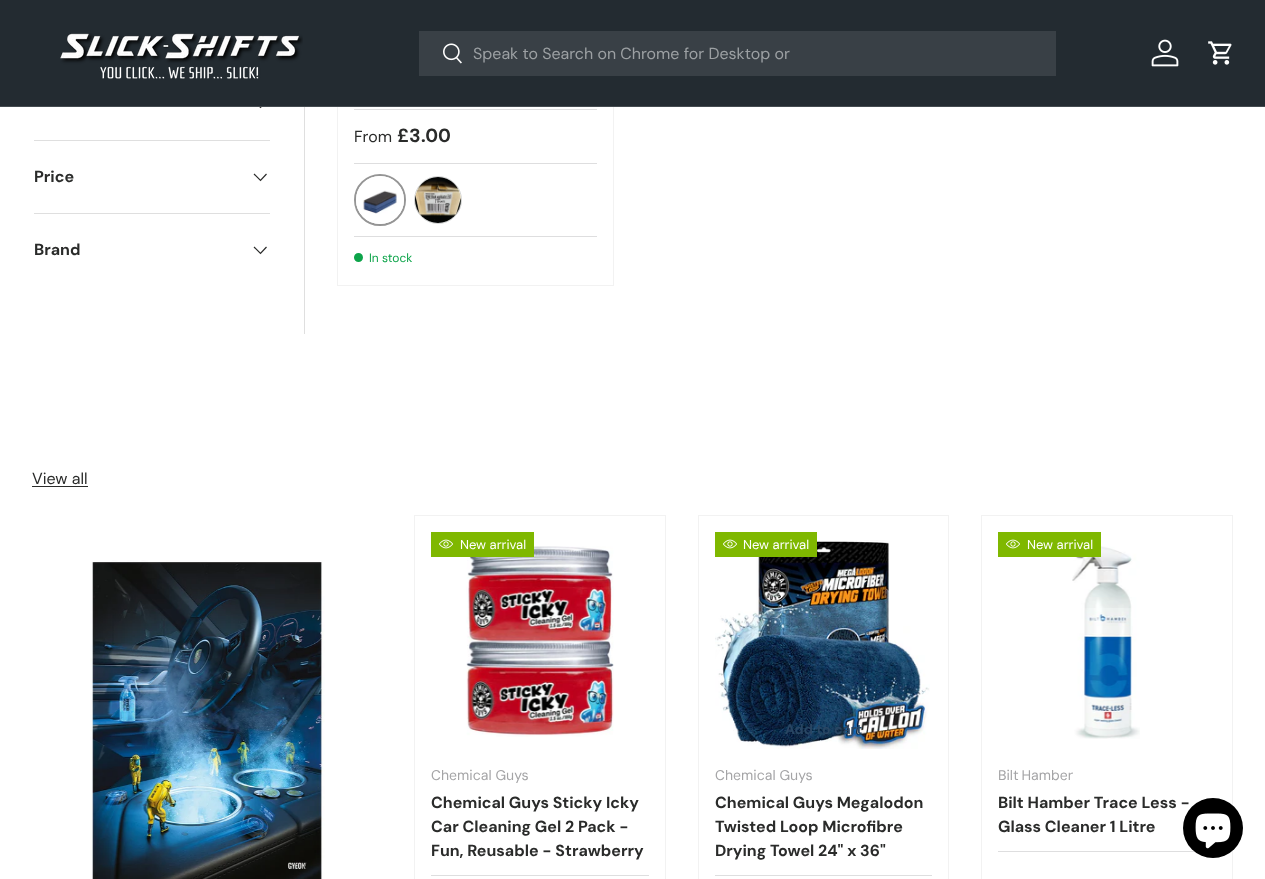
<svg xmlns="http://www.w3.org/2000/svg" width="1265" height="879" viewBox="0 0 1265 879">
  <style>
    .t1 { font: 16px 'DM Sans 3'; fill: #9ca0a3; }
    .t2 { font: bold 16px DM Sans; fill: #2a2b2a; }
    .t3 { font: 16px DM Sans; fill: #2a2b2a; }
    .t4 { font: bold 19px 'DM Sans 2'; fill: #2a2b2a; }
    .t5 { font: 12px 'DM Sans 2'; fill: #0da44a; }
    .t6 { font: 16px 'DM Sans 3'; fill: #2a2b2a; }
    .t7 { font: 13px 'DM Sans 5'; fill: #fff; }
    .t8 { font: 14px 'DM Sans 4'; fill: #a4a4a6; }
    .t9 { font: bold 14px 'DM Sans 3'; fill: #294663; }
  </style>
  <rect width="100%" height="100%" fill="#fff"/>
  <path d="M266.5 101L260.5 107.5L254 101" fill="none" stroke="#2a2b2a" stroke-width="1.2"/>
  <rect x="337.5" y="-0.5" width="276" height="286" fill="none" stroke="#f2f2f2"/>
  <rect x="0" y="0" width="1265" height="106" fill="#232b31"/>
  <rect x="0" y="106" width="1265" height="1" fill="#444b50"/>
  <image x="60" y="33" width="243" height="46" href="images/1.png"/>
  <rect x="419" y="31" width="637" height="45" fill="#394046"/>
  <image x="443" y="43" width="19" height="21" href="images/2.png"/>
  <text x="473" y="59" class="t1">Speak to Search on Chrome for Desktop or</text>
  <image x="1151" y="39" width="28" height="28" href="images/3.png"/>
  <image x="1208" y="41" width="24" height="24" href="images/4.png"/>
  <rect x="304" y="107" width="1" height="227" fill="#dfdfdf"/>
  <rect x="34" y="140" width="236" height="1" fill="#dfdfdf"/>
  <rect x="34" y="213" width="236" height="1" fill="#dfdfdf"/>
  <text x="34" y="182" class="t2">Price</text>
  <path d="M266.5 174L260.5 180.5L254 174" fill="none" stroke="#2a2b2a" stroke-width="1.2"/>
  <text x="34" y="255" class="t2">Brand</text>
  <path d="M266.5 247L260.5 253.5L254 247" fill="none" stroke="#2a2b2a" stroke-width="1.2"/>
  <rect x="354" y="109" width="243" height="1" fill="#dededf"/>
  <text x="354" y="142" class="t3">From</text>
  <text x="397" y="142" class="t4">£3.00</text>
  <rect x="354" y="163" width="243" height="1" fill="#dededf"/>
  <circle cx="380" cy="200" r="25" fill="none" stroke="#959595" stroke-width="2"/>
  <circle cx="380" cy="200" r="23" fill="none" stroke="#fff" stroke-width="2"/>
  <image x="362" y="190" width="35" height="24" href="images/5.png"/>
  <circle cx="438" cy="200" r="23.5" fill="none" stroke="#d4d5d4"/>
  <circle cx="438" cy="200" r="23" fill="#fff"/>
  <image x="415" y="177" width="46" height="46" href="images/6.png"/>
  <rect x="354" y="236" width="243" height="1" fill="#dededf"/>
  <circle cx="358.5" cy="257.5" r="4.5" fill="#0da44a"/>
  <text x="369" y="262" class="t5">In stock</text>
  <text x="32" y="484" class="t6">View all</text>
  <rect x="32" y="486" width="56" height="1" fill="#2a2b2a"/>
  <image x="90" y="560" width="235" height="319" href="images/7.png"/>
  <rect x="414.5" y="515.5" width="251" height="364" fill="none" stroke="#f2f2f2"/>
  <image x="466" y="546" width="148" height="191" href="images/9.png"/>
  <rect x="431" y="532" width="103" height="25" fill="#7fb800"/>
  <image x="439" y="539" width="14" height="10" href="images/8.png"/>
  <text x="460" y="549" class="t7">New arrival</text>
  <text x="431" y="780" class="t8">Chemical Guys</text>
  <text x="431" y="808" class="t2">Chemical Guys Sticky Icky</text>
  <text x="431" y="832" class="t2">Car Cleaning Gel 2 Pack -</text>
  <text x="431" y="856" class="t2">Fun, Reusable - Strawberry</text>
  <rect x="431" y="875" width="218" height="1" fill="#dededf"/>
  <rect x="698.5" y="515.5" width="250" height="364" fill="none" stroke="#f2f2f2"/>
  <image x="715" y="540" width="215" height="209" href="images/10.png"/>
  <rect x="715" y="532" width="102" height="25" fill="#7fb800"/>
  <image x="723" y="539" width="14" height="10" href="images/8.png"/>
  <text x="743" y="549" class="t7">New arrival</text>
  <text x="785" y="734" class="t9">Add to cart</text>
  <text x="715" y="780" class="t8">Chemical Guys</text>
  <text x="715" y="808" class="t2">Chemical Guys Megalodon</text>
  <text x="715" y="832" class="t2">Twisted Loop Microfibre</text>
  <text x="715" y="856" class="t2">Drying Towel 24" x 36"</text>
  <rect x="715" y="875" width="217" height="1" fill="#dededf"/>
  <rect x="981.5" y="515.5" width="251" height="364" fill="none" stroke="#f2f2f2"/>
  <image x="1072" y="545" width="68" height="194" href="images/11.png"/>
  <rect x="998" y="532" width="103" height="25" fill="#7fb800"/>
  <image x="1006" y="539" width="14" height="10" href="images/8.png"/>
  <text x="1027" y="549" class="t7">New arrival</text>
  <text x="998" y="780" word-spacing="-1" class="t8">Bilt Hamber</text>
  <text x="998" y="808" class="t2">Bilt Hamber Trace Less -</text>
  <text x="998" y="832" class="t2">Glass Cleaner 1 Litre</text>
  <rect x="998" y="851" width="197" height="1" fill="#dededf"/>
  <circle cx="1213" cy="828" r="30" fill="#000"/>
  <image x="1195" y="813" width="36" height="36" href="images/12.png"/>
</svg>
